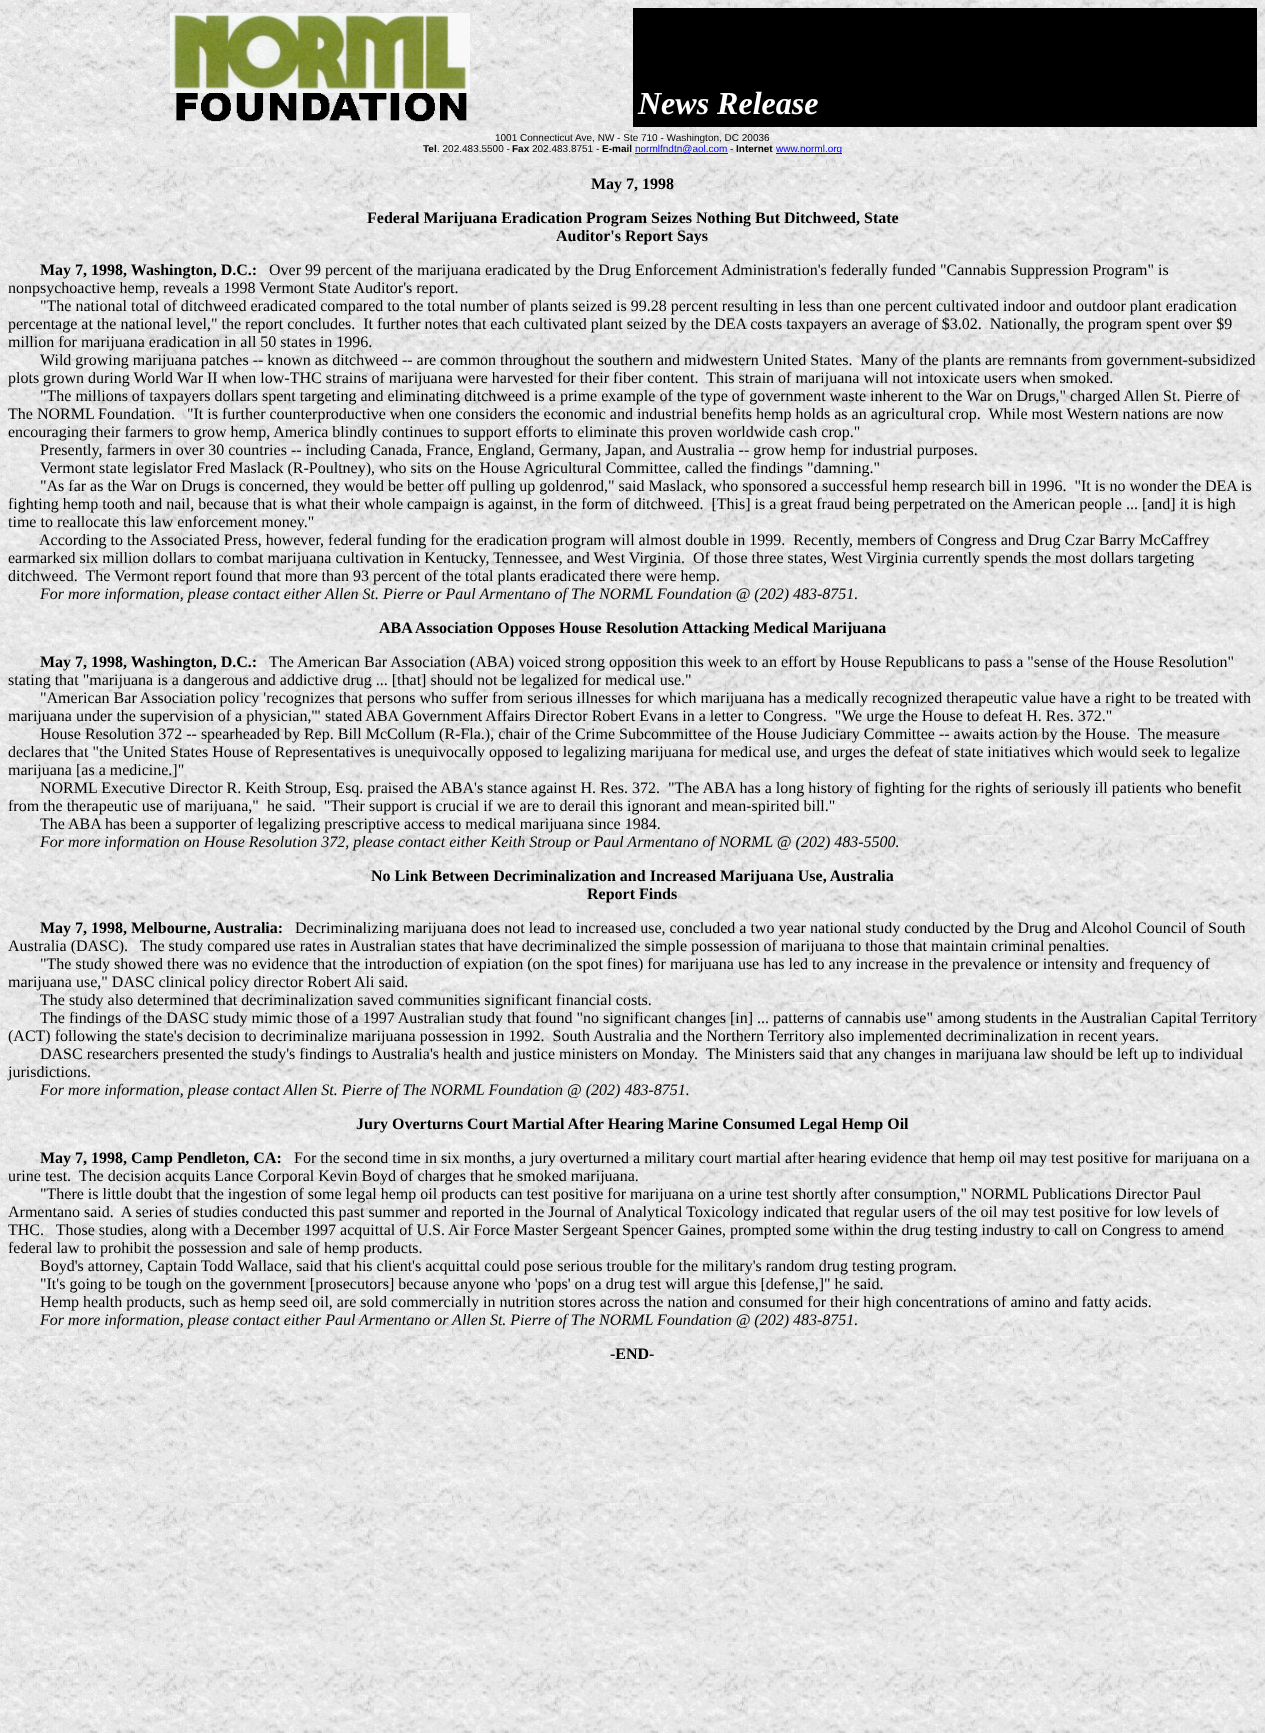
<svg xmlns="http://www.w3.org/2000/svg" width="1265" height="1733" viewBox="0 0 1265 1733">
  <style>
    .t1 { font: italic bold 32px Liberation Serif; fill: #fff; }
    .t2 { font: 10px Liberation Sans; fill: #000; }
    .t3 { font: bold 10px Liberation Sans; fill: #000; }
    .t4 { font: 10px Liberation Sans; fill: #00f; }
    .t5 { font: bold 16px Liberation Serif; fill: #000; }
    .t6 { font: 16px Liberation Serif; fill: #000; }
    .t7 { font: italic 16px Liberation Serif; fill: #000; }
  </style>
  <rect width="100%" height="100%" fill="#fff"/>
  <image x="0" y="0" width="1265" height="1733" href="images/1.png"/>
  <image x="170" y="13" width="300" height="80" href="images/2.png"/>
  <image x="176" y="93" width="291" height="29" href="images/3.png"/>
  <rect x="633" y="8" width="624" height="119" fill="#000"/>
  <text x="638" y="114" class="t1">News Release</text>
  <text x="495" y="141" class="t2">1001 Connecticut Ave, NW - Ste 710 - Washington, DC 20036</text>
  <text x="423" y="152" class="t3">Tel</text>
  <text x="437" y="152" class="t2">. 202.483.5500 -</text>
  <text x="512" y="152" class="t3">Fax</text>
  <text x="532" y="152" class="t2">202.483.8751 -</text>
  <text x="602" y="152" class="t3">E-mail</text>
  <rect x="635" y="153" width="93" height="1" fill="#00f"/>
  <text x="635" y="152" class="t4">normlfndtn@aol.com</text>
  <text x="730" y="152" class="t2">-</text>
  <text x="736" y="152" class="t3">Internet</text>
  <rect x="776" y="153" width="66" height="1" fill="#00f"/>
  <text x="776" y="152" class="t4">www.norml.org</text>
  <text x="591" y="189" class="t5">May 7, 1998</text>
  <text x="367" y="223" class="t5">Federal Marijuana Eradication Program Seizes Nothing But Ditchweed, State</text>
  <text x="556" y="241" class="t5">Auditor's Report Says</text>
  <text x="40" y="275" class="t5">May 7, 1998, Washington, D.C.:</text>
  <text x="269" y="275" class="t6">Over 99 percent of the marijuana eradicated by the Drug Enforcement Administration's federally funded "Cannabis Suppression Program" is</text>
  <text x="8" y="293" class="t6">nonpsychoactive hemp, reveals a 1998 Vermont State Auditor's report.</text>
  <text x="40" y="311" class="t6">"The national total of ditchweed eradicated compared to the total number of plants seized is 99.28 percent resulting in less than one percent cultivated indoor and outdoor plant eradication</text>
  <text x="8" y="329" class="t6" xml:space="preserve">percentage at the national level," the report concludes.  It further notes that each cultivated plant seized by the DEA costs taxpayers an average of $3.02.  Nationally, the program spent over $9</text>
  <text x="8" y="347" class="t6">million for marijuana eradication in all 50 states in 1996.</text>
  <text x="40" y="365" class="t6" xml:space="preserve">Wild growing marijuana patches -- known as ditchweed -- are common throughout the southern and midwestern United States.  Many of the plants are remnants from government-subsidized</text>
  <text x="8" y="383" class="t6" xml:space="preserve">plots grown during World War II when low-THC strains of marijuana were harvested for their fiber content.  This strain of marijuana will not intoxicate users when smoked.</text>
  <text x="40" y="401" class="t6">"The millions of taxpayers dollars spent targeting and eliminating ditchweed is a prime example of the type of government waste inherent to the War on Drugs," charged Allen St. Pierre of</text>
  <text x="8" y="419" class="t6" xml:space="preserve">The NORML Foundation.   "It is further counterproductive when one considers the economic and industrial benefits hemp holds as an agricultural crop.  While most Western nations are now</text>
  <text x="8" y="437" class="t6">encouraging their farmers to grow hemp, America blindly continues to support efforts to eliminate this proven worldwide cash crop."</text>
  <text x="40" y="455" class="t6">Presently, farmers in over 30 countries -- including Canada, France, England, Germany, Japan, and Australia -- grow hemp for industrial purposes.</text>
  <text x="40" y="473" class="t6">Vermont state legislator Fred Maslack (R-Poultney), who sits on the House Agricultural Committee, called the findings "damning."</text>
  <text x="40" y="491" class="t6" xml:space="preserve">"As far as the War on Drugs is concerned, they would be better off pulling up goldenrod," said Maslack, who sponsored a successful hemp research bill in 1996.  "It is no wonder the DEA is</text>
  <text x="8" y="509" class="t6" xml:space="preserve">fighting hemp tooth and nail, because that is what their whole campaign is against, in the form of ditchweed.  [This] is a great fraud being perpetrated on the American people ... [and] it is high</text>
  <text x="8" y="527" class="t6">time to reallocate this law enforcement money."</text>
  <text x="39" y="545" class="t6" xml:space="preserve">According to the Associated Press, however, federal funding for the eradication program will almost double in 1999.  Recently, members of Congress and Drug Czar Barry McCaffrey</text>
  <text x="8" y="563" class="t6" xml:space="preserve">earmarked six million dollars to combat marijuana cultivation in Kentucky, Tennessee, and West Virginia.  Of those three states, West Virginia currently spends the most dollars targeting</text>
  <text x="8" y="581" class="t6" xml:space="preserve">ditchweed.  The Vermont report found that more than 93 percent of the total plants eradicated there were hemp.</text>
  <text x="40" y="599" class="t7">For more information, please contact either Allen St. Pierre or Paul Armentano of The NORML Foundation @ (202) 483-8751.</text>
  <text x="379" y="633" class="t5">ABA Association Opposes House Resolution Attacking Medical Marijuana</text>
  <text x="40" y="667" class="t5">May 7, 1998, Washington, D.C.:</text>
  <text x="269" y="667" class="t6">The American Bar Association (ABA) voiced strong opposition this week to an effort by House Republicans to pass a "sense of the House Resolution"</text>
  <text x="8" y="685" class="t6">stating that "marijuana is a dangerous and addictive drug ... [that] should not be legalized for medical use."</text>
  <text x="40" y="703" class="t6">"American Bar Association policy 'recognizes that persons who suffer from serious illnesses for which marijuana has a medically recognized therapeutic value have a right to be treated with</text>
  <text x="8" y="721" class="t6" xml:space="preserve">marijuana under the supervision of a physician,'" stated ABA Government Affairs Director Robert Evans in a letter to Congress.  "We urge the House to defeat H. Res. 372."</text>
  <text x="40" y="739" class="t6" xml:space="preserve">House Resolution 372 -- spearheaded by Rep. Bill McCollum (R-Fla.), chair of the Crime Subcommittee of the House Judiciary Committee -- awaits action by the House.  The measure</text>
  <text x="8" y="757" class="t6">declares that "the United States House of Representatives is unequivocally opposed to legalizing marijuana for medical use, and urges the defeat of state initiatives which would seek to legalize</text>
  <text x="8" y="775" class="t6">marijuana [as a medicine.]"</text>
  <text x="40" y="793" class="t6" xml:space="preserve">NORML Executive Director R. Keith Stroup, Esq. praised the ABA's stance against H. Res. 372.  "The ABA has a long history of fighting for the rights of seriously ill patients who benefit</text>
  <text x="8" y="811" class="t6" xml:space="preserve">from the therapeutic use of marijuana,"  he said.  "Their support is crucial if we are to derail this ignorant and mean-spirited bill."</text>
  <text x="40" y="829" class="t6">The ABA has been a supporter of legalizing prescriptive access to medical marijuana since 1984.</text>
  <text x="40" y="847" class="t7">For more information on House Resolution 372, please contact either Keith Stroup or Paul Armentano of NORML @ (202) 483-5500.</text>
  <text x="371" y="881" class="t5">No Link Between Decriminalization and Increased Marijuana Use, Australia</text>
  <text x="587" y="899" class="t5">Report Finds</text>
  <text x="40" y="933" class="t5">May 7, 1998, Melbourne, Australia:</text>
  <text x="295" y="933" class="t6">Decriminalizing marijuana does not lead to increased use, concluded a two year national study conducted by the Drug and Alcohol Council of South</text>
  <text x="8" y="951" class="t6" xml:space="preserve">Australia (DASC).   The study compared use rates in Australian states that have decriminalized the simple possession of marijuana to those that maintain criminal penalties.</text>
  <text x="40" y="969" class="t6">"The study showed there was no evidence that the introduction of expiation (on the spot fines) for marijuana use has led to any increase in the prevalence or intensity and frequency of</text>
  <text x="8" y="987" class="t6">marijuana use," DASC clinical policy director Robert Ali said.</text>
  <text x="40" y="1005" class="t6">The study also determined that decriminalization saved communities significant financial costs.</text>
  <text x="40" y="1023" class="t6">The findings of the DASC study mimic those of a 1997 Australian study that found "no significant changes [in] ... patterns of cannabis use" among students in the Australian Capital Territory</text>
  <text x="8" y="1041" class="t6" xml:space="preserve">(ACT) following the state's decision to decriminalize marijuana possession in 1992.  South Australia and the Northern Territory also implemented decriminalization in recent years.</text>
  <text x="40" y="1059" class="t6" xml:space="preserve">DASC researchers presented the study's findings to Australia's health and justice ministers on Monday.  The Ministers said that any changes in marijuana law should be left up to individual</text>
  <text x="8" y="1077" class="t6">jurisdictions.</text>
  <text x="40" y="1095" class="t7">For more information, please contact Allen St. Pierre of The NORML Foundation @ (202) 483-8751.</text>
  <text x="356" y="1129" class="t5">Jury Overturns Court Martial After Hearing Marine Consumed Legal Hemp Oil</text>
  <text x="40" y="1163" class="t5">May 7, 1998, Camp Pendleton, CA:</text>
  <text x="294" y="1163" class="t6">For the second time in six months, a jury overturned a military court martial after hearing evidence that hemp oil may test positive for marijuana on a</text>
  <text x="8" y="1181" class="t6" xml:space="preserve">urine test.  The decision acquits Lance Corporal Kevin Boyd of charges that he smoked marijuana.</text>
  <text x="40" y="1199" class="t6">"There is little doubt that the ingestion of some legal hemp oil products can test positive for marijuana on a urine test shortly after consumption," NORML Publications Director Paul</text>
  <text x="8" y="1217" class="t6" xml:space="preserve">Armentano said.  A series of studies conducted this past summer and reported in the Journal of Analytical Toxicology indicated that regular users of the oil may test positive for low levels of</text>
  <text x="8" y="1235" class="t6" xml:space="preserve">THC.   Those studies, along with a December 1997 acquittal of U.S. Air Force Master Sergeant Spencer Gaines, prompted some within the drug testing industry to call on Congress to amend</text>
  <text x="8" y="1253" class="t6">federal law to prohibit the possession and sale of hemp products.</text>
  <text x="40" y="1271" class="t6">Boyd's attorney, Captain Todd Wallace, said that his client's acquittal could pose serious trouble for the military's random drug testing program.</text>
  <text x="40" y="1289" class="t6">"It's going to be tough on the government [prosecutors] because anyone who 'pops' on a drug test will argue this [defense,]" he said.</text>
  <text x="40" y="1307" class="t6">Hemp health products, such as hemp seed oil, are sold commercially in nutrition stores across the nation and consumed for their high concentrations of amino and fatty acids.</text>
  <text x="40" y="1325" class="t7">For more information, please contact either Paul Armentano or Allen St. Pierre of The NORML Foundation @ (202) 483-8751.</text>
  <text x="610" y="1359" class="t5">-END-</text>
</svg>
